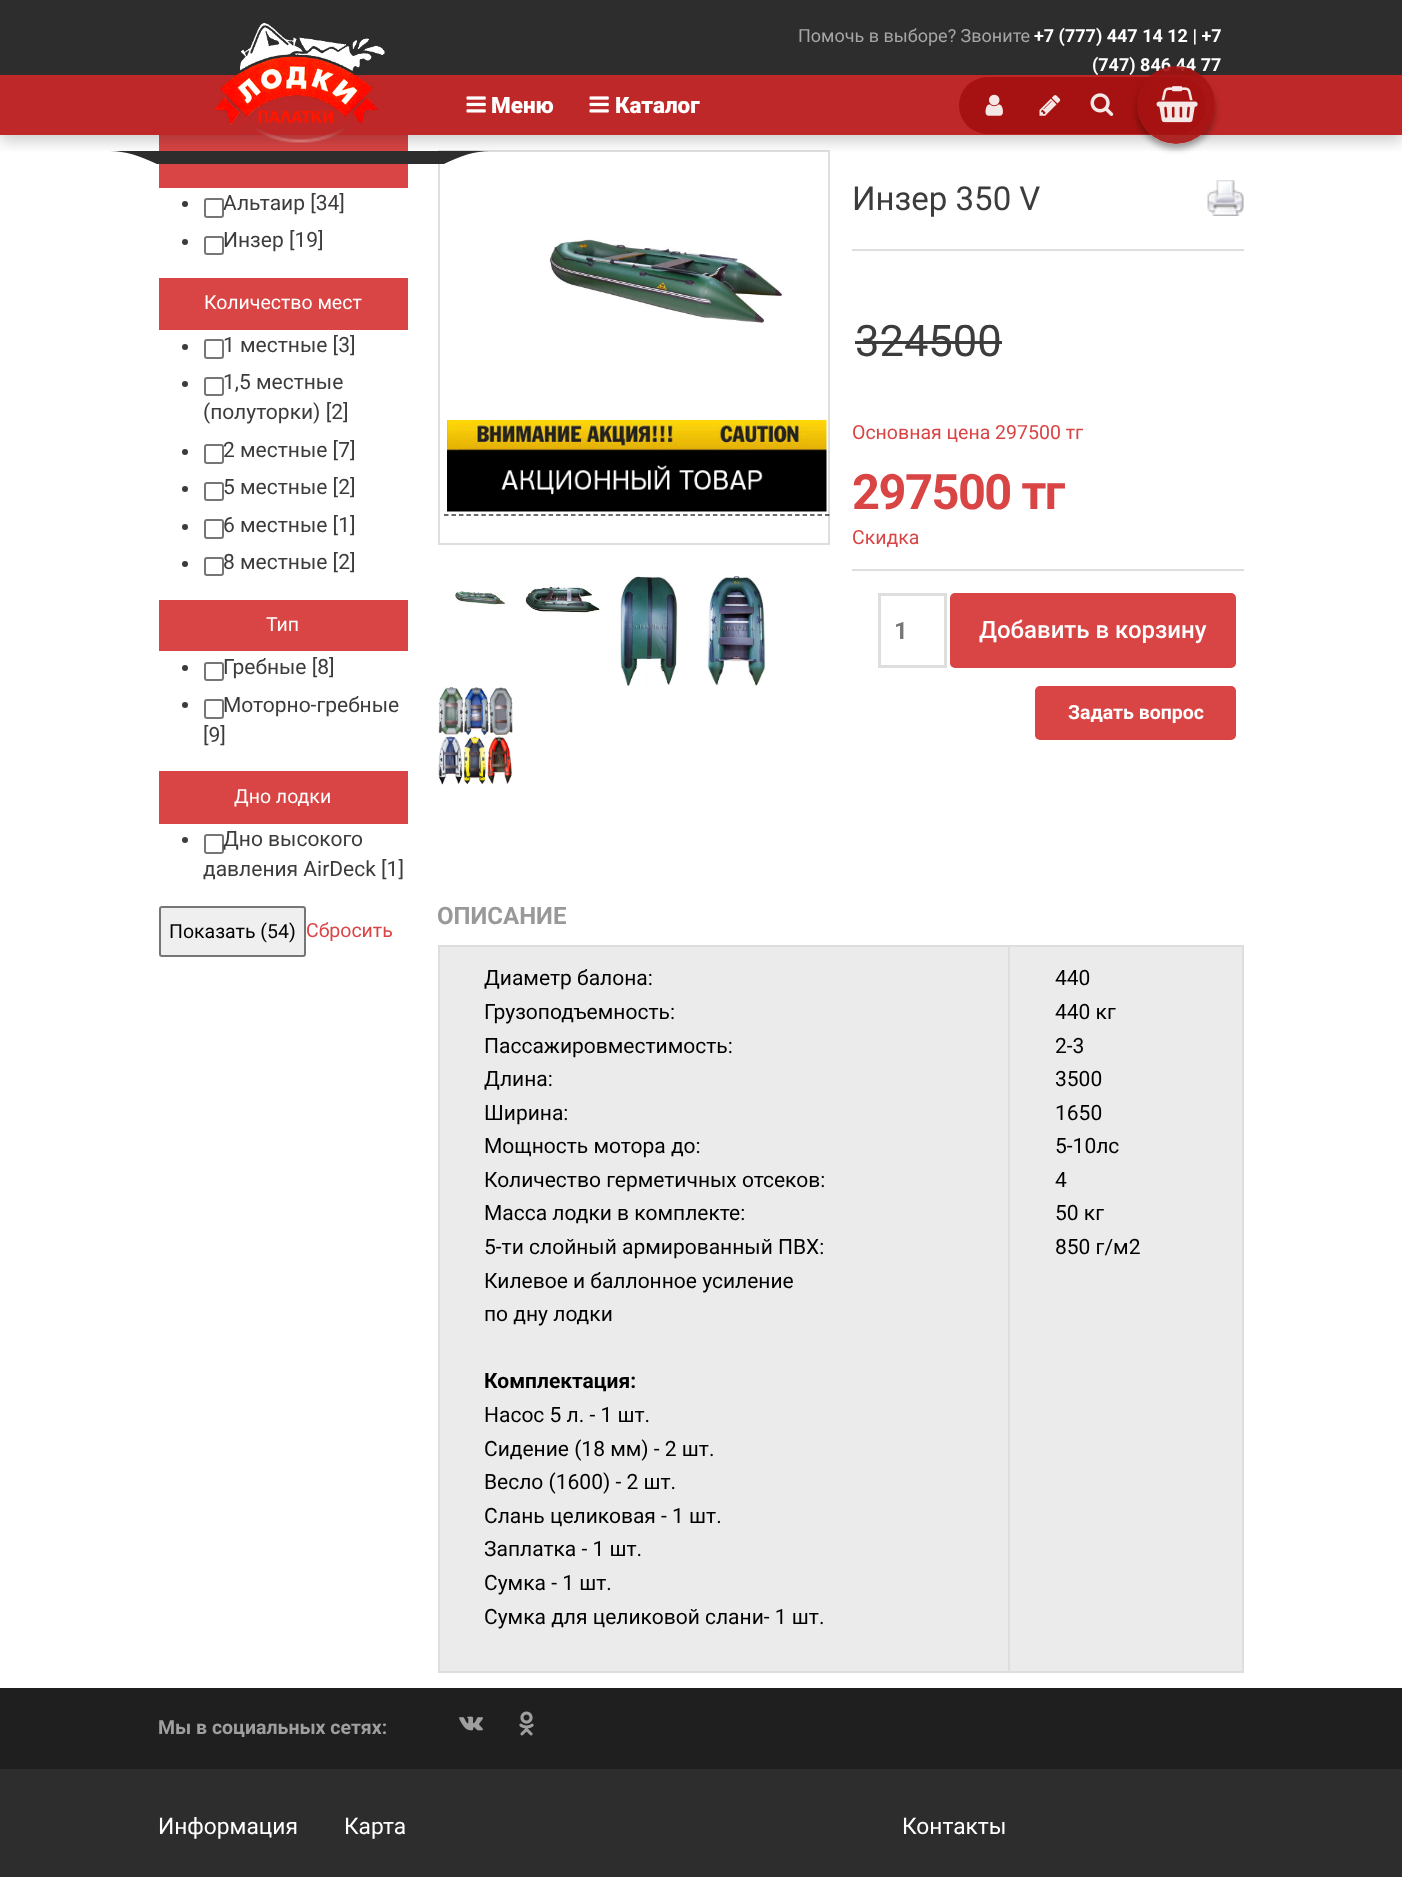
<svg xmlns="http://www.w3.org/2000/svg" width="1402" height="1877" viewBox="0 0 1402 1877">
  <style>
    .t1 { font: 18px Roboto; fill: #a6a6a6; }
    .t2 { font: bold 18px Roboto; fill: #fff; }
    .t3 { font: 900 22.5px Roboto; fill: #fff; }
    .t4 { font: 21px Roboto; fill: #3c3c3c; }
    .t5 { font: 19.5px Roboto; fill: #fff; }
    .t6 { font: 19.5px Roboto; fill: #000; }
    .t7 { font: 19.5px Roboto; fill: #d94444; }
    .t8 { font: 33px Roboto; fill: #3c3c3c; }
    .t9 { font: 43.5px Roboto; fill: #3c3c3c; }
    .t10 { font: bold 48.75px Roboto; letter-spacing: -1.5px; fill: #d94444; }
    .t11 { font: bold 24px Roboto; fill: #777; }
    .t12 { font: 500 24px Roboto; fill: #fff; }
    .t13 { font: bold 19.5px Roboto; fill: #fff; }
    .t14 { font: bold 24px Roboto; fill: #999; }
    .t15 { font: 21px Roboto; fill: #000; }
    .t16 { font: bold 21px Roboto; fill: #000; }
    .t17 { font: bold 19.5px Roboto; fill: #9f9f9f; }
    .t18 { font: 22.75px Roboto; fill: #fff; }
  </style>
  <defs>
    <clipPath id="clip1"><rect x="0" y="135" width="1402" height="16"/></clipPath>
    <clipPath id="clip2"><rect x="105" y="74" width="405" height="90"/></clipPath>
    <clipPath id="clip3"><path d="M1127 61H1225V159H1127ZM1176 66C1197.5 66 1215 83.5 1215 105C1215 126.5 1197.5 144 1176 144C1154.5 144 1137 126.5 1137 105C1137 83.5 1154.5 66 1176 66Z" clip-rule="evenodd"/></clipPath>
  </defs>
  <rect width="100%" height="100%" fill="#fff"/>
  <rect x="0" y="0" width="1402" height="75" fill="#2d2d2d"/>
  <rect x="159" y="135" width="249" height="53" fill="#d94444"/>
  <rect x="439" y="151" width="390" height="393" fill="none" stroke="#dedede" stroke-width="2"/>
  <g clip-path="url(#clip1)">
    <rect x="0" y="6" width="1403" height="135" fill="#00000033" filter="blur(7.5px)"/>
  </g>
  <rect x="0" y="75" width="1402" height="60" fill="#bf2828"/>
  <image x="248" y="123" width="104" height="20" href="images/2.png"/>
  <image x="214" y="23" width="171" height="102" href="images/1.png"/>
  <g clip-path="url(#clip2)">
    <path d="M105 151H110C169 151 233 229 301 229C369 229 432 151 490 151C497 151 494 151 494 151Z" fill="#2d2d2d"/>
  </g>
  <text x="798" y="42" class="t1">Помочь в выборе? Звоните</text>
  <text x="1034" y="42" class="t2">+7 (777) 447 14 12 | +7</text>
  <text x="1092" y="71" class="t2">(747) 846 44 77</text>
  <image x="466" y="96" width="20" height="17" href="images/3.png"/>
  <text x="491" y="113" class="t3">Меню</text>
  <image x="589" y="96" width="20" height="17" href="images/3.png"/>
  <text x="615" y="113" class="t3">Каталог</text>
  <rect x="959" y="77" width="247" height="57" rx="28.5" fill="#a61212"/>
  <g clip-path="url(#clip3)">
    <rect x="1137" y="71" width="78" height="78" rx="39" fill="#00000057" filter="blur(3px)"/>
  </g>
  <circle cx="1176" cy="105" r="39" fill="#a61212e6"/>
  <image x="1156" y="86" width="42" height="37" href="images/4.png"/>
  <image x="985" y="94" width="18" height="22" href="images/5.png"/>
  <image x="1039" y="95" width="22" height="21" href="images/6.png"/>
  <image x="1090" y="93" width="24" height="23" href="images/7.png"/>
  <circle cx="185" cy="204" r="3" fill="#3c3c3c"/>
  <rect x="205" y="199" width="18" height="18" rx="2" fill="none" stroke="#767676" stroke-width="2"/>
  <text x="223" y="210" class="t4">Альтаир [34]</text>
  <circle cx="185" cy="242" r="3" fill="#3c3c3c"/>
  <rect x="205" y="237" width="18" height="17" rx="2" fill="none" stroke="#767676" stroke-width="2"/>
  <text x="223" y="247" class="t4">Инзер [19]</text>
  <rect x="159" y="278" width="249" height="52" fill="#d94444"/>
  <text x="204" y="309" class="t5">Количество мест</text>
  <circle cx="185" cy="347" r="3" fill="#3c3c3c"/>
  <rect x="205" y="340" width="18" height="18" rx="2" fill="none" stroke="#767676" stroke-width="2"/>
  <text x="223" y="352" class="t4">1 местные [3]</text>
  <circle cx="185" cy="384" r="3" fill="#3c3c3c"/>
  <rect x="205" y="378" width="18" height="17" rx="2" fill="none" stroke="#767676" stroke-width="2"/>
  <text x="223" y="389" class="t4">1,5 местные</text>
  <text x="203" y="419" class="t4">(полуторки) [2]</text>
  <circle cx="185" cy="452" r="3" fill="#3c3c3c"/>
  <rect x="205" y="445" width="18" height="18" rx="2" fill="none" stroke="#767676" stroke-width="2"/>
  <text x="223" y="457" class="t4">2 местные [7]</text>
  <circle cx="185" cy="489" r="3" fill="#3c3c3c"/>
  <rect x="205" y="483" width="18" height="17" rx="2" fill="none" stroke="#767676" stroke-width="2"/>
  <text x="223" y="494" class="t4">5 местные [2]</text>
  <circle cx="185" cy="527" r="3" fill="#3c3c3c"/>
  <rect x="205" y="520" width="18" height="18" rx="2" fill="none" stroke="#767676" stroke-width="2"/>
  <text x="223" y="532" class="t4">6 местные [1]</text>
  <circle cx="185" cy="564" r="3" fill="#3c3c3c"/>
  <rect x="205" y="558" width="18" height="17" rx="2" fill="none" stroke="#767676" stroke-width="2"/>
  <text x="223" y="569" class="t4">8 местные [2]</text>
  <rect x="159" y="600" width="249" height="51" fill="#d94444"/>
  <text x="266" y="631" class="t5">Тип</text>
  <circle cx="185" cy="668" r="3" fill="#3c3c3c"/>
  <rect x="205" y="663" width="18" height="17" rx="2" fill="none" stroke="#767676" stroke-width="2"/>
  <text x="223" y="674" class="t4">Гребные [8]</text>
  <circle cx="185" cy="705" r="3" fill="#3c3c3c"/>
  <rect x="205" y="700" width="18" height="18" rx="2" fill="none" stroke="#767676" stroke-width="2"/>
  <text x="223" y="712" class="t4">Моторно-гребные</text>
  <text x="203" y="742" class="t4">[9]</text>
  <rect x="159" y="771" width="249" height="53" fill="#d94444"/>
  <text x="234" y="803" class="t5">Дно лодки</text>
  <circle cx="185" cy="840" r="3" fill="#3c3c3c"/>
  <rect x="205" y="835" width="18" height="18" rx="2" fill="none" stroke="#767676" stroke-width="2"/>
  <text x="223" y="846" class="t4">Дно высокого</text>
  <text x="203" y="876" class="t4">давления AirDeck [1]</text>
  <rect x="160" y="907" width="145" height="49" rx="2" fill="#efefef" stroke="#767676" stroke-width="2"/>
  <text x="169" y="938" class="t6">Показать (54)</text>
  <text x="306" y="937" class="t7">Сбросить</text>
  <image x="549" y="237" width="234" height="86" href="images/8.png"/>
  <path d="M444 515H829.5" fill="none" stroke="#3c3c3c" stroke-width="1.5" stroke-dasharray="4.5 2.97"/>
  <image x="447" y="420" width="380" height="92" href="images/9.png"/>
  <image x="455" y="591" width="50" height="14" href="images/10.png"/>
  <image x="525" y="586" width="75" height="27" href="images/11.png"/>
  <image x="620" y="576" width="58" height="111" href="images/12.png"/>
  <image x="707" y="576" width="59" height="110" href="images/13.png"/>
  <image x="438" y="687" width="75" height="98" href="images/14.png"/>
  <rect x="852" y="249" width="392" height="2" fill="#dedede"/>
  <text x="852" y="210" class="t8">Инзер 350 V</text>
  <image x="1207" y="180" width="37" height="36" href="images/15.png"/>
  <text x="855" y="356" class="t9">324500</text>
  <rect x="855" y="341" width="147" height="3" fill="#3c3c3c"/>
  <rect x="852" y="569" width="392" height="2" fill="#dedede"/>
  <text x="852" y="439" class="t7">Основная цена 297500 тг</text>
  <text x="852" y="509" class="t10">297500 тг</text>
  <text x="852" y="544" class="t7">Скидка</text>
  <rect x="879.5" y="594.5" width="66" height="72" fill="none" stroke="#dedede" stroke-width="3"/>
  <text x="894" y="639" class="t11">1</text>
  <rect x="950" y="593" width="286" height="75" rx="5" fill="#d94444"/>
  <text x="979" y="638" class="t12">Добавить в корзину</text>
  <rect x="1035" y="686" width="201" height="54" rx="5" fill="#d94444"/>
  <text x="1068" y="719" class="t13">Задать вопрос</text>
  <text x="437" y="924" class="t14">ОПИСАНИЕ</text>
  <rect x="440" y="947" width="568" height="724" fill="#ebebeb"/>
  <rect x="1008" y="945" width="236" height="2" fill="#dedede"/>
  <rect x="1242" y="945" width="2" height="728" fill="#dedede"/>
  <rect x="1008" y="1671" width="236" height="2" fill="#dedede"/>
  <rect x="1008" y="945" width="2" height="728" fill="#dedede"/>
  <rect x="438" y="945" width="572" height="2" fill="#dedede"/>
  <rect x="438" y="1671" width="572" height="2" fill="#dedede"/>
  <rect x="438" y="945" width="2" height="728" fill="#dedede"/>
  <text x="484" y="985" class="t15">Диаметр балона:</text>
  <text x="484" y="1019" class="t15">Грузоподъемность:</text>
  <text x="484" y="1053" class="t15">Пассажировместимость:</text>
  <text x="484" y="1086" class="t15">Длина:</text>
  <text x="484" y="1120" class="t15">Ширина:</text>
  <text x="484" y="1153" class="t15">Мощность мотора до:</text>
  <text x="484" y="1187" class="t15">Количество герметичных отсеков:</text>
  <text x="484" y="1220" class="t15">Масса лодки в комплекте:</text>
  <text x="484" y="1254" class="t15">5-ти слойный армированный ПВХ:</text>
  <text x="484" y="1288" class="t15">Килевое и баллонное усиление</text>
  <text x="484" y="1321" class="t15">по дну лодки</text>
  <text x="484" y="1388" class="t16">Комплектация:</text>
  <text x="484" y="1422" class="t15">Насос 5 л. - 1 шт.</text>
  <text x="484" y="1456" class="t15">Сидение (18 мм) - 2 шт.</text>
  <text x="484" y="1489" class="t15">Весло (1600) - 2 шт.</text>
  <text x="484" y="1523" class="t15">Слань целиковая - 1 шт.</text>
  <text x="484" y="1556" class="t15">Заплатка - 1 шт.</text>
  <text x="484" y="1590" class="t15">Сумка - 1 шт.</text>
  <text x="484" y="1624" class="t15">Сумка для целиковой слани- 1 шт.</text>
  <rect x="1010" y="947" width="232" height="724" fill="#ebebeb"/>
  <text x="1055" y="985" class="t15">440</text>
  <text x="1055" y="1019" class="t15">440 кг</text>
  <text x="1055" y="1053" class="t15">2-3</text>
  <text x="1055" y="1086" class="t15">3500</text>
  <text x="1055" y="1120" class="t15">1650</text>
  <text x="1055" y="1153" class="t15">5-10лс</text>
  <text x="1055" y="1187" class="t15">4</text>
  <text x="1055" y="1220" class="t15">50 кг</text>
  <text x="1055" y="1254" class="t15">850 г/м2</text>
  <rect x="0" y="1688" width="1402" height="81" fill="#1f1f1f"/>
  <text x="158" y="1734" class="t17">Мы в социальных сетях:</text>
  <image x="459" y="1716" width="24" height="15" href="images/16.png"/>
  <image x="519" y="1711" width="15" height="25" href="images/17.png"/>
  <rect x="0" y="1769" width="1402" height="108" fill="#2d2d2d"/>
  <text x="158" y="1834" class="t18">Информация</text>
  <text x="344" y="1834" class="t18">Карта</text>
  <text x="902" y="1834" class="t18">Контакты</text>
</svg>
